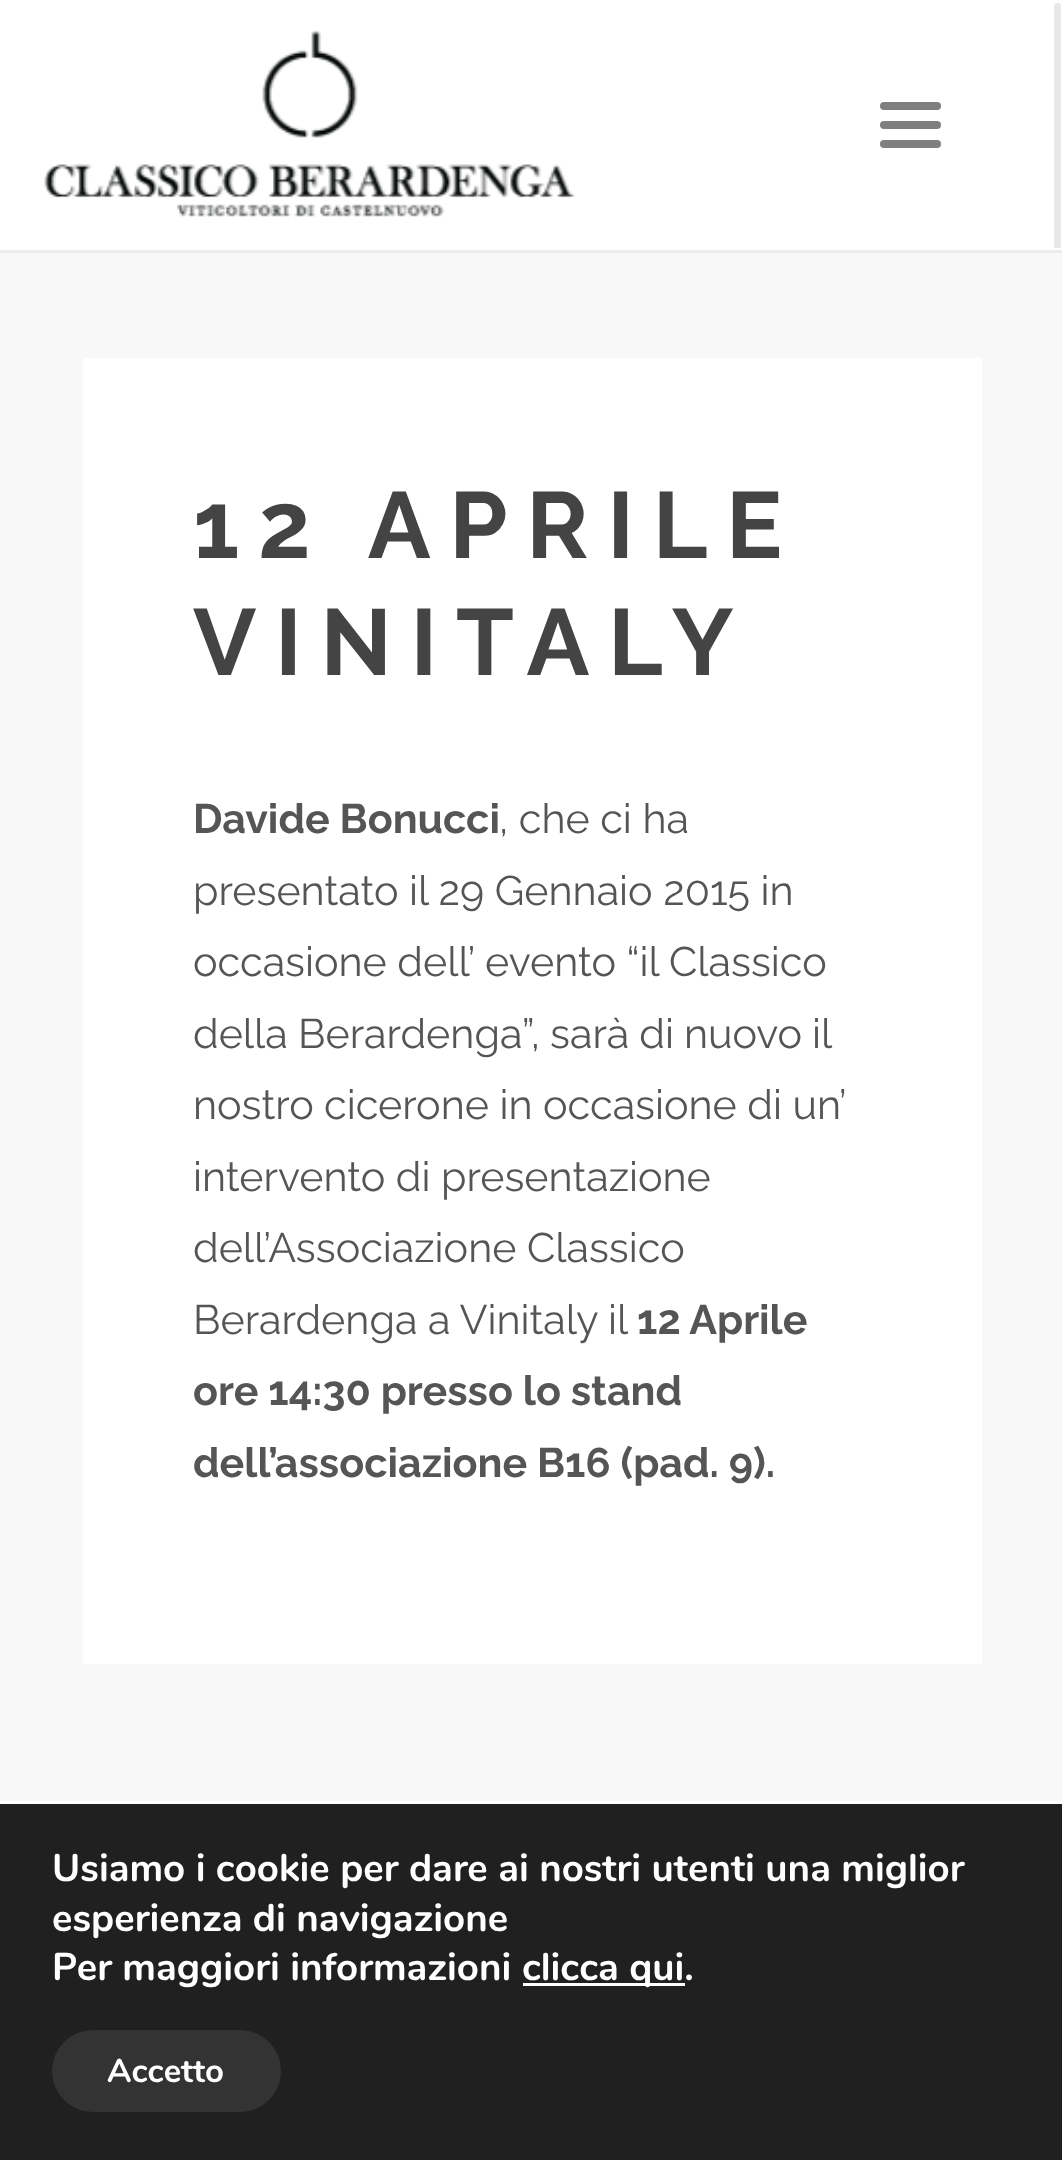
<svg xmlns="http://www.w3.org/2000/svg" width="1062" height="2160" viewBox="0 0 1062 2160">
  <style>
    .t1 { font: bold 93.5px Raleway; letter-spacing: 18.75px; fill: #444; }
    .t2 { font: bold 41.25px Raleway; fill: #555; }
    .t3 { font: 41.25px Raleway; fill: #555; }
    .t4 { font: bold 38.5px Nunito; fill: #fff; }
    .t5 { font: bold 33px Nunito; fill: #fff; }
  </style>
  <rect width="100%" height="100%" fill="#f8f8f8"/>
  <rect x="1052.5" y="1.5" width="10" height="1284" rx="5" fill="#424242" stroke="#fff" stroke-width="3"/>
  <rect x="1051" y="248" width="11" height="1039" fill="#f8f8f8"/>
  <rect x="0" y="250" width="1062" height="3" fill="#ececec"/>
  <rect x="0" y="0" width="1062" height="250" fill="#ffffffe0"/>
  <image x="44" y="30" width="531" height="187" href="images/1.png"/>
  <rect x="880" y="102" width="61" height="8" rx="4" fill="#7f7f7f"/>
  <rect x="880" y="121" width="61" height="8" rx="4" fill="#7f7f7f"/>
  <rect x="880" y="140" width="61" height="8" rx="4" fill="#7f7f7f"/>
  <rect x="83" y="358" width="899" height="1306" fill="#fff"/>
  <text x="193" y="558" class="t1">12 APRILE</text>
  <text x="193" y="675" class="t1">VINITALY</text>
  <text x="193" y="833" class="t2">Davide Bonucci</text>
  <text x="499" y="833" class="t3">, che ci ha</text>
  <text x="193" y="905" class="t3">presentato il 29 Gennaio 2015 in</text>
  <text x="193" y="976" class="t3">occasione dell’ evento “il Classico</text>
  <text x="193" y="1048" class="t3">della</text>
  <text x="298" y="1048" word-spacing="-0.5" class="t3">Berardenga”, sarà di nuovo il</text>
  <text x="193" y="1119" class="t3">nostro</text>
  <text x="324" y="1119" class="t3">cicerone in occasione di un’</text>
  <text x="193" y="1191" class="t3">intervento di presentazione</text>
  <text x="193" y="1262" class="t3">dell’Associazione Classico</text>
  <text x="193" y="1334" class="t3">Berardenga a Vinitaly il</text>
  <text x="637" y="1334" class="t2">12 Aprile</text>
  <text x="193" y="1405" class="t2">ore 14:30 presso lo stand</text>
  <text x="193" y="1477" class="t2">dell’associazione B16 (pad. 9).</text>
  <rect x="0" y="1804" width="1062" height="356" fill="#202020"/>
  <rect x="0" y="1801" width="1062" height="3" fill="#fff"/>
  <text x="52" y="1881" class="t4">Usiamo i cookie per dare ai nostri utenti una miglior</text>
  <text x="52" y="1931" class="t4">esperienza di navigazione</text>
  <text x="52" y="1980" class="t4">Per maggiori informazioni</text>
  <rect x="523" y="1983" width="162" height="3" fill="#fff"/>
  <text x="522" y="1980" class="t4">clicca qui.</text>
  <rect x="52" y="2030" width="229" height="82" rx="41" fill="#333"/>
  <text x="107" y="2082" class="t5">Accetto</text>
</svg>
